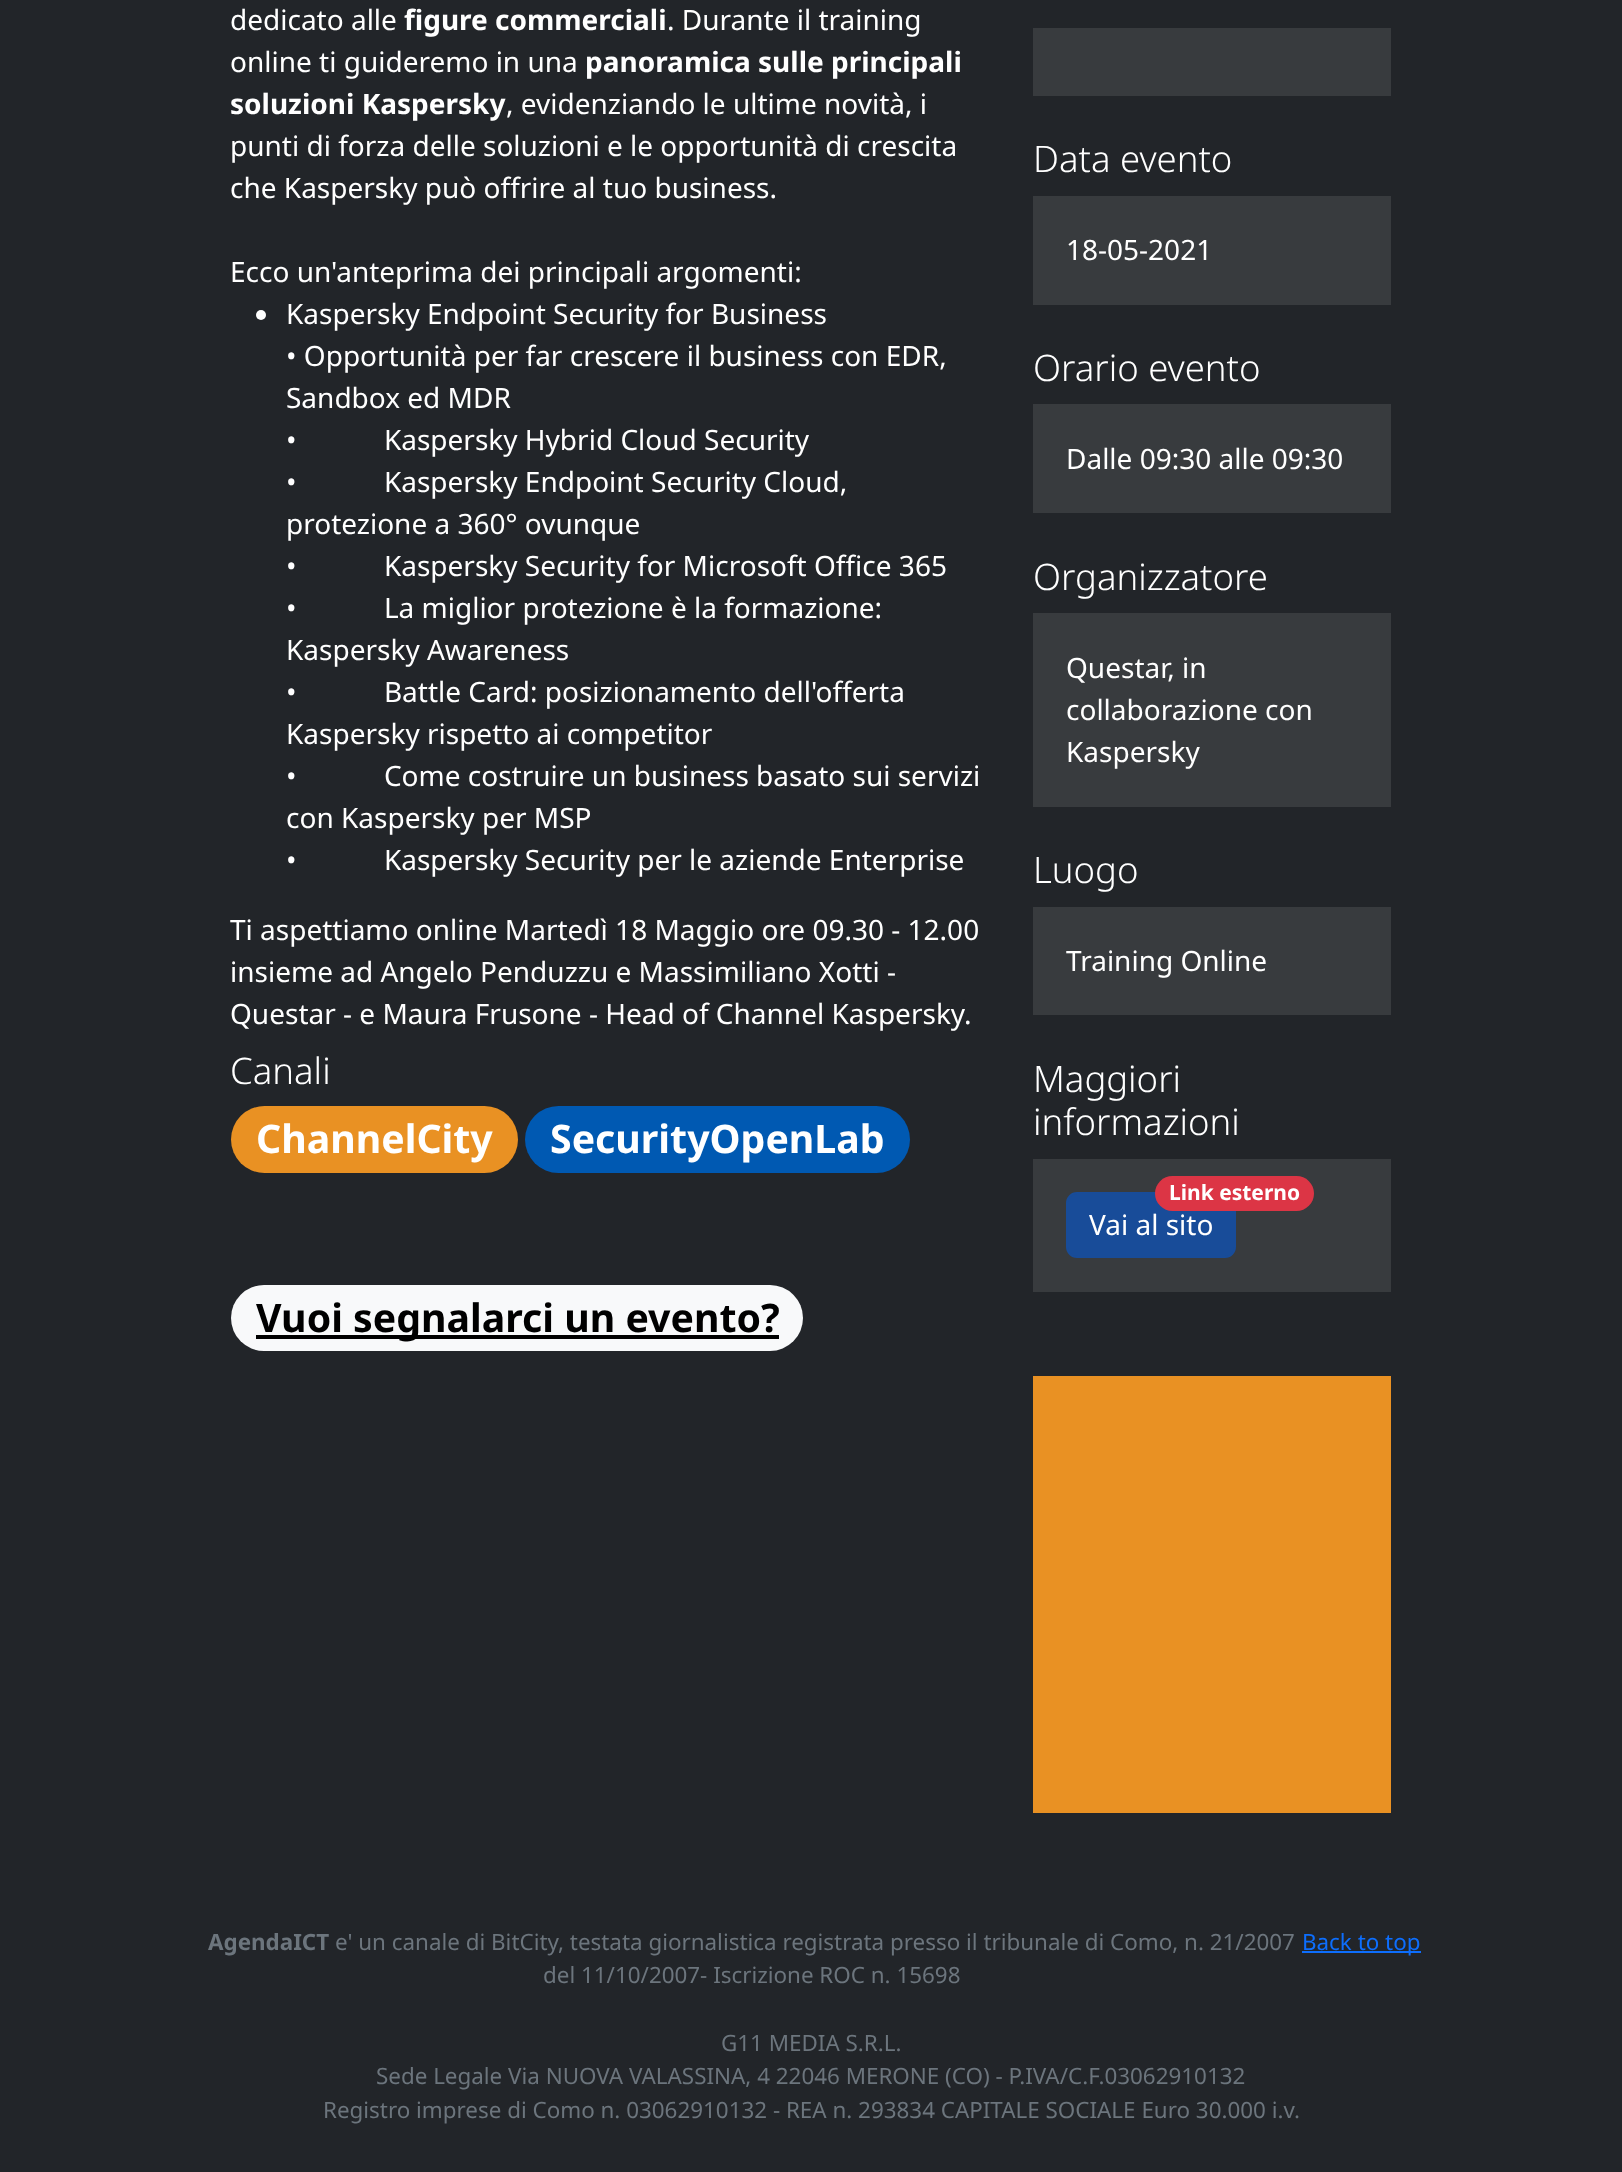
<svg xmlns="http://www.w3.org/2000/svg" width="1622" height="2172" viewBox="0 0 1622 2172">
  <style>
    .t1 { font: 28px Noto Sans; fill: #fff; }
    .t2 { font: bold 28px Noto Sans; fill: #fff; }
    .t3 { font: 300 36.5px Noto Sans; fill: #fff; }
    .t4 { font: bold 39.25px Noto Sans; fill: #fff; }
    .t5 { font: bold 39.25px Noto Sans; fill: #000; }
    .t6 { font: bold 21px Noto Sans; fill: #fff; }
    .t7 { font: bold 22.4px Noto Sans; fill: #6c757d; }
    .t8 { font: 22.4px Noto Sans; fill: #6c757d; }
    .t9 { font: 22.4px Noto Sans; fill: #0d6efd; }
  </style>
  <rect width="100%" height="100%" fill="#222529"/>
  <text x="230" y="30" class="t1">dedicato alle</text>
  <text x="404" y="30" class="t2">figure commerciali</text>
  <text x="667" y="30" class="t1">. Durante il training</text>
  <text x="230" y="72" class="t1">online ti guideremo in una</text>
  <text x="585" y="72" class="t2">panoramica sulle principali</text>
  <text x="230" y="114" class="t2">soluzioni Kaspersky</text>
  <text x="506" y="114" class="t1">, evidenziando le ultime novità, i</text>
  <text x="230" y="156" class="t1">punti di forza delle soluzioni e le opportunità di crescita</text>
  <text x="230" y="198" class="t1">che Kaspersky può offrire al tuo business.</text>
  <text x="230" y="282" class="t1">Ecco un'anteprima dei principali argomenti:</text>
  <circle cx="261" cy="315" r="5" fill="#fff"/>
  <text x="286" y="324" class="t1">Kaspersky Endpoint Security for Business</text>
  <text x="286" y="366" class="t1">• Opportunità per far crescere il business con EDR,</text>
  <text x="286" y="408" class="t1">Sandbox ed MDR</text>
  <text x="286" y="450" class="t1" xml:space="preserve">•            Kaspersky Hybrid Cloud Security</text>
  <text x="286" y="492" class="t1" xml:space="preserve">•            Kaspersky Endpoint Security Cloud,</text>
  <text x="286" y="534" class="t1">protezione a 360° ovunque</text>
  <text x="286" y="576" class="t1" xml:space="preserve">•            Kaspersky Security for Microsoft Office 365</text>
  <text x="286" y="618" class="t1" xml:space="preserve">•            La miglior protezione è la formazione:</text>
  <text x="286" y="660" class="t1">Kaspersky Awareness</text>
  <text x="286" y="702" class="t1" xml:space="preserve">•            Battle Card: posizionamento dell'offerta</text>
  <text x="286" y="744" class="t1">Kaspersky rispetto ai competitor</text>
  <text x="286" y="786" class="t1" xml:space="preserve">•            Come costruire un business basato sui servizi</text>
  <text x="286" y="828" class="t1">con Kaspersky per MSP</text>
  <text x="286" y="870" class="t1" xml:space="preserve">•            Kaspersky Security per le aziende Enterprise</text>
  <text x="230" y="940" class="t1">Ti aspettiamo online Martedì 18 Maggio ore 09.30 - 12.00</text>
  <text x="230" y="982" class="t1">insieme ad Angelo Penduzzu e Massimiliano Xotti -</text>
  <text x="230" y="1024" class="t1">Questar - e Maura Frusone - Head of Channel Kaspersky.</text>
  <text x="230" y="1084" class="t3">Canali</text>
  <rect x="231" y="1106" width="287" height="67" rx="33.5" fill="#e99123"/>
  <text x="256" y="1153" class="t4">ChannelCity</text>
  <rect x="525" y="1106" width="385" height="67" rx="33.5" fill="#0059b2"/>
  <text x="550" y="1153" class="t4">SecurityOpenLab</text>
  <rect x="231" y="1285" width="572" height="66" rx="33" fill="#f8f9fa"/>
  <rect x="256" y="1335" width="523" height="4" fill="#000"/>
  <text x="256" y="1332" class="t5">Vuoi segnalarci un evento?</text>
  <rect x="1033" y="28" width="358" height="68" fill="#383b3e"/>
  <text x="1033" y="172" class="t3">Data evento</text>
  <rect x="1033" y="196" width="358" height="109" fill="#383b3e"/>
  <text x="1066" y="260" class="t1">18-05-2021</text>
  <text x="1033" y="381" class="t3">Orario evento</text>
  <rect x="1033" y="404" width="358" height="109" fill="#383b3e"/>
  <text x="1066" y="469" class="t1">Dalle 09:30 alle 09:30</text>
  <text x="1033" y="590" class="t3">Organizzatore</text>
  <rect x="1033" y="613" width="358" height="194" fill="#383b3e"/>
  <text x="1066" y="678" class="t1">Questar, in</text>
  <text x="1066" y="720" class="t1">collaborazione con</text>
  <text x="1066" y="762" class="t1">Kaspersky</text>
  <text x="1033" y="883" class="t3">Luogo</text>
  <rect x="1033" y="907" width="358" height="108" fill="#383b3e"/>
  <text x="1066" y="971" class="t1">Training Online</text>
  <text x="1033" y="1092" class="t3">Maggiori</text>
  <text x="1033" y="1135" class="t3">informazioni</text>
  <rect x="1033" y="1159" width="358" height="133" fill="#383b3e"/>
  <rect x="1067" y="1193" width="168" height="64" rx="10" fill="#184c99" stroke="#184c99" stroke-width="2"/>
  <rect x="1155" y="1176" width="159" height="35" rx="17.5" fill="#dc3545"/>
  <text x="1169" y="1200" class="t6">Link esterno</text>
  <text x="1089" y="1235" class="t1">Vai al sito</text>
  <rect x="1033" y="1376" width="358" height="437" fill="#e99123"/>
  <text x="208" y="1950" class="t7">AgendaICT</text>
  <text x="335" y="1950" class="t8">e' un canale di BitCity, testata giornalistica registrata presso il tribunale di Como, n. 21/2007</text>
  <text x="543" y="1983" class="t8">del 11/10/2007- Iscrizione ROC n. 15698</text>
  <text x="721" y="2051" class="t8">G11 MEDIA S.R.L.</text>
  <text x="376" y="2084" class="t8">Sede Legale Via NUOVA VALASSINA, 4 22046 MERONE (CO) - P.IVA/C.F.03062910132</text>
  <text x="323" y="2118" class="t8">Registro imprese di Como n. 03062910132 - REA n. 293834 CAPITALE SOCIALE Euro 30.000 i.v.</text>
  <rect x="1302" y="1951" width="119" height="2" fill="#0d6efd"/>
  <text x="1302" y="1950" class="t9">Back to top</text>
</svg>
